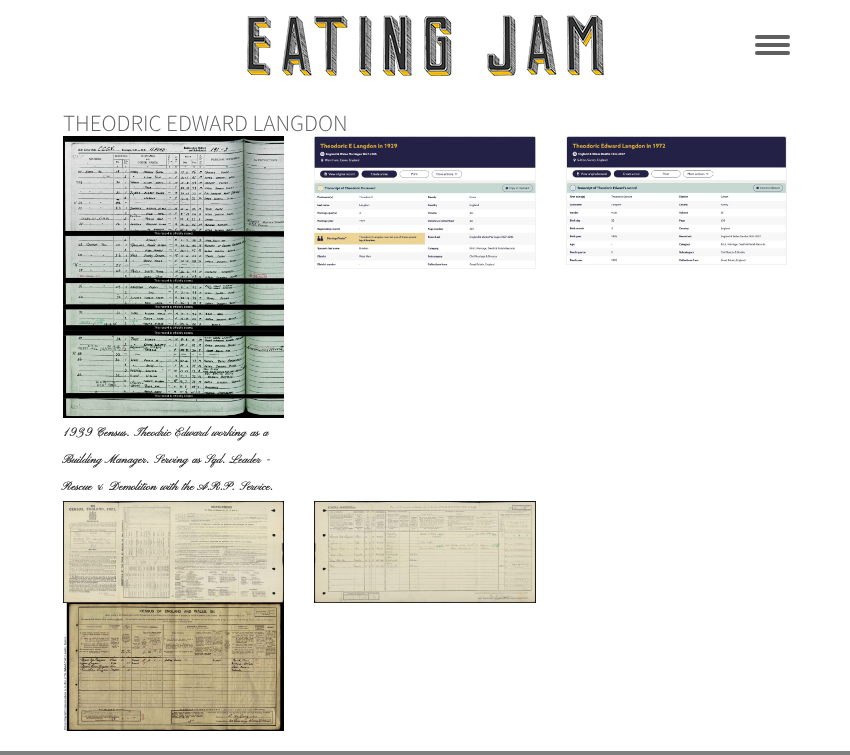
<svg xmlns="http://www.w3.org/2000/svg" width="850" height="755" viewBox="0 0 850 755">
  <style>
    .t1 { font: 300 23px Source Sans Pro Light; fill: #5f5f5f; }
    .t2 { font: bold 12px Pinyon Script; fill: #2d2d2d; }
  </style>
  <rect width="100%" height="100%" fill="#fff"/>
  <image x="247" y="15" width="357" height="61" href="images/1.png"/>
  <rect x="755" y="35" width="35" height="4" rx="2" fill="#5f5f5f"/>
  <rect x="755" y="43" width="35" height="4" rx="2" fill="#5f5f5f"/>
  <rect x="755" y="51" width="35" height="4" rx="2" fill="#5f5f5f"/>
  <text x="63" y="131" class="t1">THEODRIC EDWARD LANGDON</text>
  <image x="314" y="136" width="222" height="133" href="images/2.png"/>
  <image x="566" y="136" width="221" height="129" href="images/3.png"/>
  <image x="63" y="136" width="221" height="282" href="images/4.png"/>
  <text x="63" y="436" class="t2">1939 Census. Theodric Edward working as a</text>
  <text x="63" y="463" class="t2">Building Manager. Serving as Sqd. Leader -</text>
  <text x="63" y="490" class="t2">Rescue &amp; Demolition with the A.R.P. Service.</text>
  <image x="63" y="501" width="221" height="102" href="images/5.png"/>
  <image x="314" y="501" width="222" height="102" href="images/6.png"/>
  <image x="64" y="603" width="220" height="128" href="images/7.png"/>
  <rect x="0" y="751" width="850" height="4" fill="#808080"/>
</svg>
